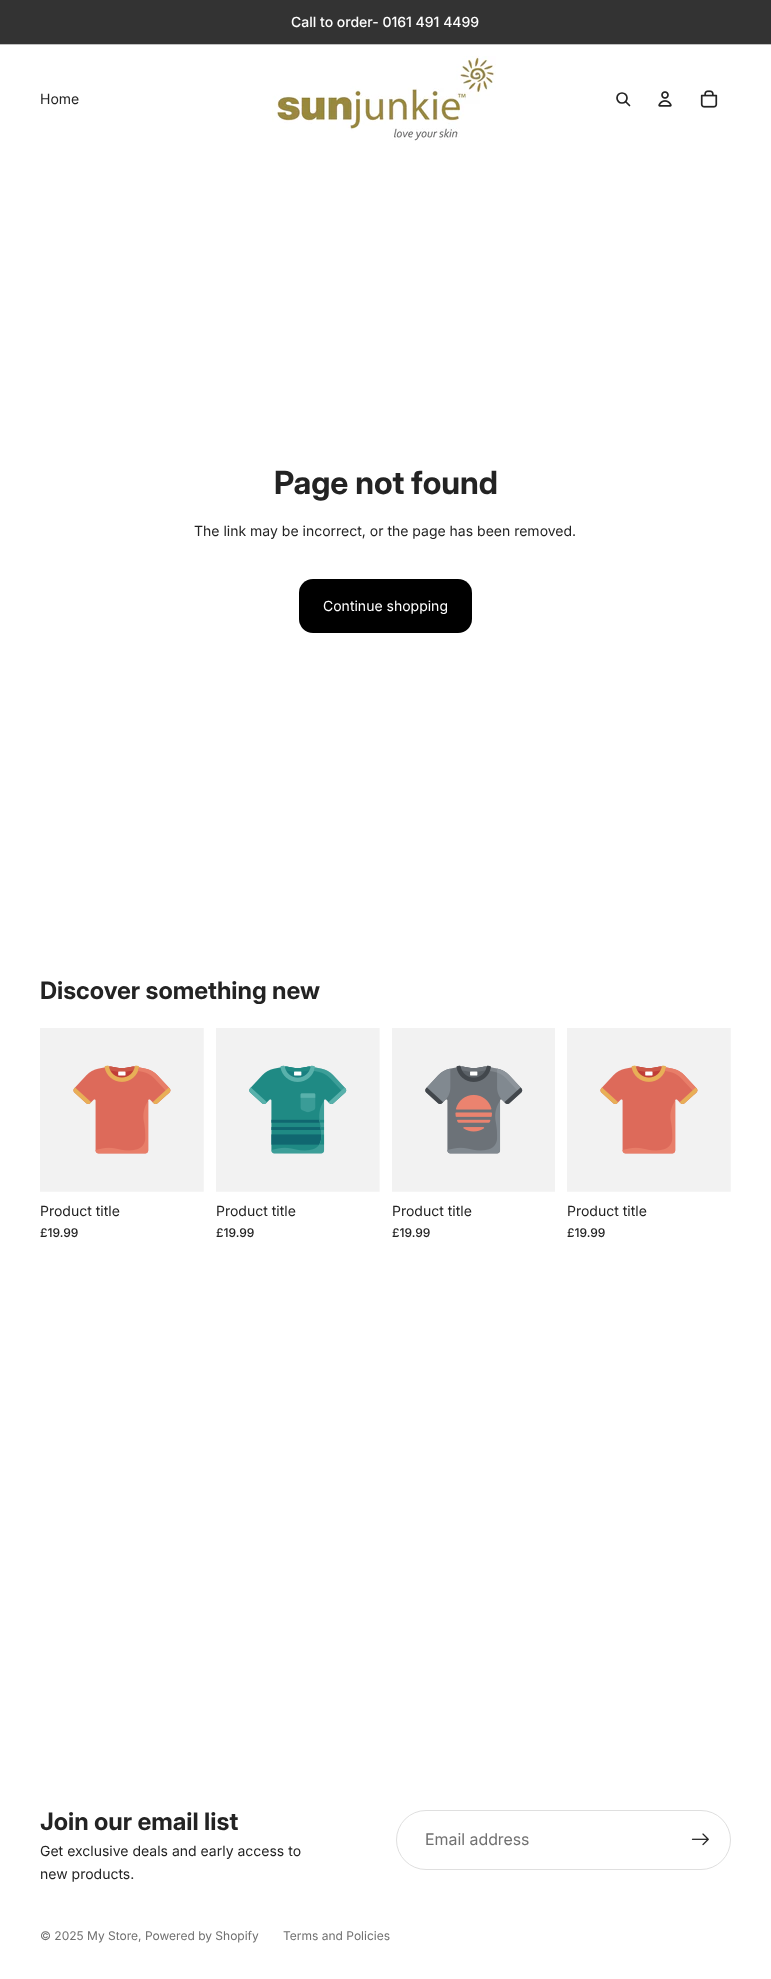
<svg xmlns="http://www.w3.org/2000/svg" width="771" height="1979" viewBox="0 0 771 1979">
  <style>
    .t1 { font: 500 14px Inter; fill: #fff; }
    .t2 { font: 14px Inter; fill: #232323; }
    .t3 { font: bold 32px Inter; fill: #232323; }
    .t4 { font: 14px Inter; fill: #fff; }
    .t5 { font: bold 24px 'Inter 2'; fill: #232323; }
    .t6 { font: 500 12px Inter; fill: #232323; }
    .t7 { font: 16px 'Inter 2'; fill: #707070; }
    .t8 { font: 12px Inter; fill: #707070; }
  </style>
  <rect width="100%" height="100%" fill="#fff"/>
  <rect x="0" y="0" width="771" height="44" fill="#333"/>
  <rect x="0" y="44" width="771" height="1" fill="#c0c0c0"/>
  <text x="291" y="27" class="t1">Call to order- 0161 491 4499</text>
  <text x="40" y="104" class="t2">Home</text>
  <image x="272" y="56" width="224" height="85" href="images/1.png"/>
  <circle cx="622" cy="98" r="5" fill="none" stroke="#232323" stroke-width="1.7"/>
  <path d="M626 102L629.5 105.5" fill="none" stroke="#121212ed" stroke-width="1.7" stroke-linecap="round" stroke-linejoin="round"/>
  <image x="658" y="91" width="14" height="16" href="images/2.png"/>
  <image x="700" y="90" width="18" height="18" href="images/3.png"/>
  <text x="274" y="494" class="t3">Page not found</text>
  <text x="194" y="536" class="t2">The link may be incorrect, or the page has been removed.</text>
  <rect x="299" y="579" width="173" height="54" rx="14" fill="#000"/>
  <text x="323" y="611" class="t4">Continue shopping</text>
  <text x="40" y="999" class="t5">Discover something new</text>
  <image x="40" y="1028" width="164" height="164" href="images/4.png"/>
  <text x="40" y="1216" class="t2">Product title</text>
  <text x="40" y="1237" class="t6">£19.99</text>
  <image x="216" y="1028" width="164" height="164" href="images/5.png"/>
  <text x="216" y="1216" class="t2">Product title</text>
  <text x="216" y="1237" class="t6">£19.99</text>
  <image x="392" y="1028" width="163" height="164" href="images/6.png"/>
  <text x="392" y="1216" class="t2">Product title</text>
  <text x="392" y="1237" class="t6">£19.99</text>
  <image x="567" y="1028" width="164" height="164" href="images/4.png"/>
  <text x="567" y="1216" class="t2">Product title</text>
  <text x="567" y="1237" class="t6">£19.99</text>
  <text x="40" y="1830" class="t5">Join our email list</text>
  <text x="40" y="1856" class="t2">Get exclusive deals and early access to</text>
  <text x="40" y="1879" class="t2">new products.</text>
  <rect x="396.5" y="1810.5" width="334" height="59" rx="29.5" fill="none" stroke="#dfdfdf"/>
  <text x="425" y="1845" class="t7">Email address</text>
  <image x="691" y="1833" width="18" height="13" href="images/7.png"/>
  <text x="40" y="1940" class="t8">© 2025 My Store, Powered by Shopify</text>
  <text x="283" y="1940" class="t8">Terms and Policies</text>
</svg>
